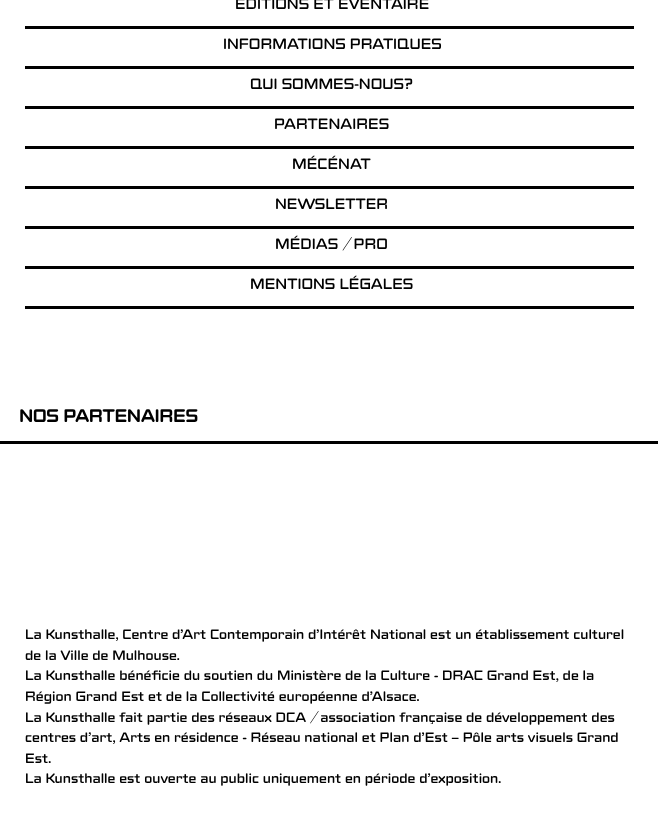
<svg xmlns="http://www.w3.org/2000/svg" width="658" height="831" viewBox="0 0 658 831">
  <style>
    .t1 { font: 15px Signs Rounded; fill: #000; }
    .t2 { font: bold 17.5px Signs Rounded; fill: #000; }
    .t3 { font: 13.75px Signs Rounded; fill: #000; }
  </style>
  <rect width="100%" height="100%" fill="#fff"/>
  <rect x="25" y="26" width="609" height="3" fill="#000"/>
  <text x="235" y="9" class="t1">ÉDITIONS ET ÉVENTAIRE</text>
  <rect x="25" y="66" width="609" height="3" fill="#000"/>
  <text x="223" y="49" class="t1">INFORMATIONS PRATIQUES</text>
  <rect x="25" y="106" width="609" height="3" fill="#000"/>
  <text x="250" y="89" class="t1">QUI SOMMES-NOUS?</text>
  <rect x="25" y="146" width="609" height="3" fill="#000"/>
  <text x="274" y="129" class="t1">PARTENAIRES</text>
  <rect x="25" y="186" width="609" height="3" fill="#000"/>
  <text x="292" y="169" class="t1">MÉCÉNAT</text>
  <rect x="25" y="226" width="609" height="3" fill="#000"/>
  <text x="275" y="209" class="t1">NEWSLETTER</text>
  <rect x="25" y="266" width="609" height="3" fill="#000"/>
  <text x="275" y="249" class="t1">MÉDIAS / PRO</text>
  <rect x="25" y="306" width="609" height="3" fill="#000"/>
  <text x="250" y="289" class="t1">MENTIONS LÉGALES</text>
  <text x="19" y="422" class="t2">NOS PARTENAIRES</text>
  <rect x="0" y="441" width="658" height="3" fill="#000"/>
  <text x="25" y="639" class="t3">La Kunsthalle, Centre d’Art Contemporain d’Intérêt National est un établissement culturel</text>
  <text x="25" y="660" class="t3">de la Ville de Mulhouse.</text>
  <text x="25" y="680" class="t3">La Kunsthalle bénéficie du soutien du Ministère de la Culture - DRAC Grand Est, de la</text>
  <text x="25" y="701" class="t3">Région Grand Est et de la Collectivité européenne d’Alsace.</text>
  <text x="25" y="722" class="t3">La Kunsthalle fait partie des réseaux DCA / association française de développement des</text>
  <text x="25" y="742" class="t3">centres d'art, Arts en résidence - Réseau national et Plan d’Est – Pôle arts visuels Grand</text>
  <text x="25" y="763" class="t3">Est.</text>
  <text x="25" y="783" class="t3">La Kunsthalle est ouverte au public uniquement en période d'exposition.</text>
</svg>
